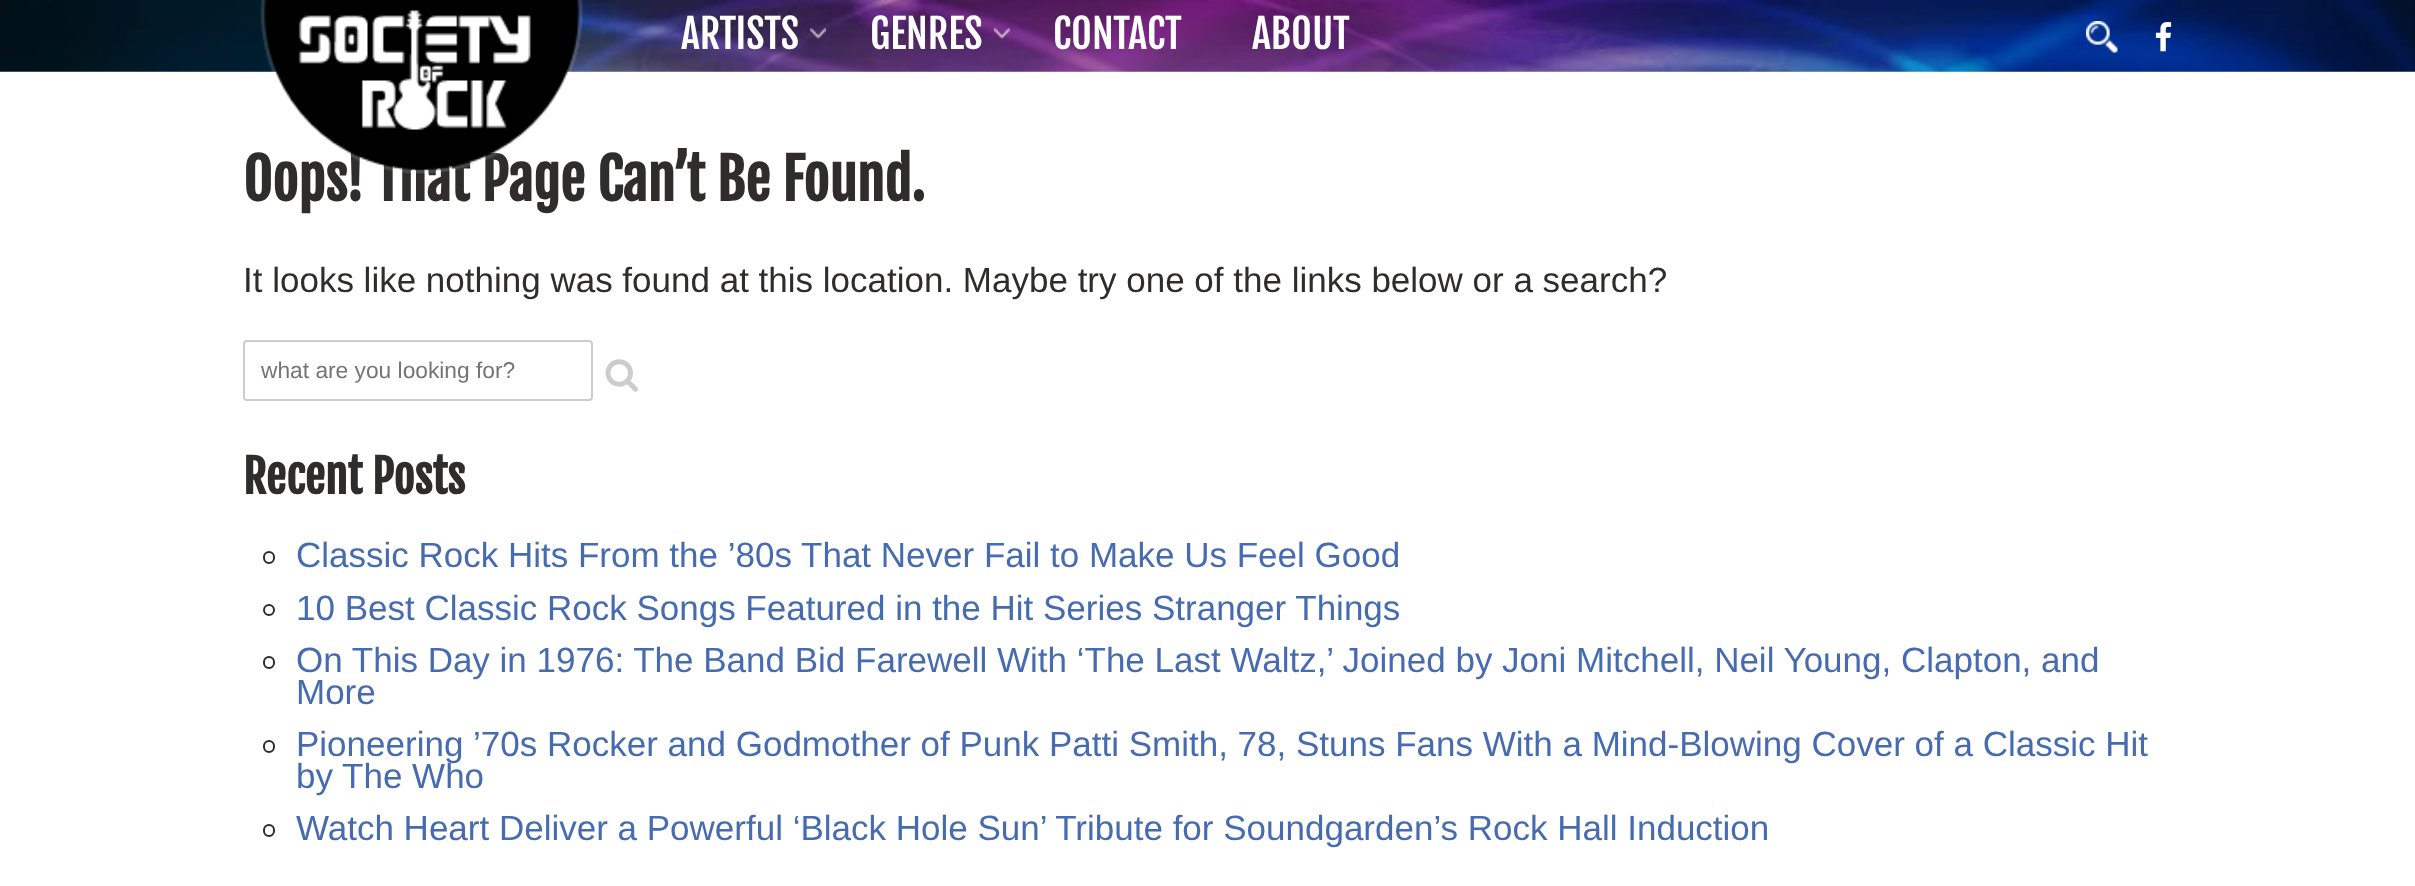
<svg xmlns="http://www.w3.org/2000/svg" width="2415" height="886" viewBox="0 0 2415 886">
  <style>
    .t1 { font: bold 56px Fjalla One; fill: #2e2d2c; }
    .t2 { font: 40px Fjalla One; fill: #fff; }
    .t3 { font: 35px Liberation Sans; fill: #2e2d2c; }
    .t4 { font: 22.75px Liberation Sans; fill: #757575; }
    .t5 { font: bold 45.5px Fjalla One; fill: #2e2d2c; }
    .t6 { font: 35px Liberation Sans; fill: #466bb0; }
  </style>
  <rect width="100%" height="100%" fill="#fff"/>
  <image x="0" y="0" width="2415" height="72" href="images/1.png"/>
  <text x="243" y="201" class="t1">Oops! That Page Can’t Be Found.</text>
  <image x="260" y="0" width="323" height="174" href="images/2.png"/>
  <text x="681" y="49" class="t2">ARTISTS</text>
  <image x="810" y="28" width="16" height="11" href="images/3.png"/>
  <text x="870" y="49" class="t2">GENRES</text>
  <image x="994" y="28" width="16" height="11" href="images/4.png"/>
  <text x="1053" y="49" class="t2">CONTACT</text>
  <text x="1252" y="49" class="t2">ABOUT</text>
  <image x="2086" y="21" width="32" height="32" href="images/5.png"/>
  <image x="2155" y="22" width="17" height="30" href="images/6.png"/>
  <text x="243" y="292" class="t3">It looks like nothing was found at this location. Maybe try one of the links below or a search?</text>
  <rect x="244" y="341" width="348" height="59" rx="3" fill="none" stroke="#ccc" stroke-width="2"/>
  <text x="261" y="378" class="t4">what are you looking for?</text>
  <image x="605" y="359" width="33" height="33" href="images/7.png"/>
  <text x="243" y="494" class="t5">Recent Posts</text>
  <rect x="264" y="552" width="10" height="11" rx="5" fill="none" stroke="#2e2d2c" stroke-width="2"/>
  <text x="296" y="567" class="t6">Classic Rock Hits From the ’80s That Never Fail to Make Us Feel Good</text>
  <circle cx="269" cy="610" r="5" fill="none" stroke="#2e2d2c" stroke-width="2"/>
  <text x="296" y="620" class="t6">10 Best Classic Rock Songs Featured in the Hit Series Stranger Things</text>
  <rect x="264" y="657" width="10" height="11" rx="5" fill="none" stroke="#2e2d2c" stroke-width="2"/>
  <text x="296" y="672" class="t6">On This Day in 1976: The Band Bid Farewell With ‘The Last Waltz,’ Joined by Joni Mitchell, Neil Young, Clapton, and</text>
  <text x="296" y="704" class="t6">More</text>
  <rect x="264" y="741" width="10" height="11" rx="5" fill="none" stroke="#2e2d2c" stroke-width="2"/>
  <text x="296" y="756" class="t6">Pioneering ’70s Rocker and Godmother of Punk Patti Smith, 78, Stuns Fans With a Mind-Blowing Cover of a Classic Hit</text>
  <text x="296" y="788" class="t6">by The Who</text>
  <rect x="264" y="825" width="10" height="11" rx="5" fill="none" stroke="#2e2d2c" stroke-width="2"/>
  <text x="296" y="840" class="t6">Watch Heart Deliver a Powerful ‘Black Hole Sun’ Tribute for Soundgarden’s Rock Hall Induction</text>
</svg>
